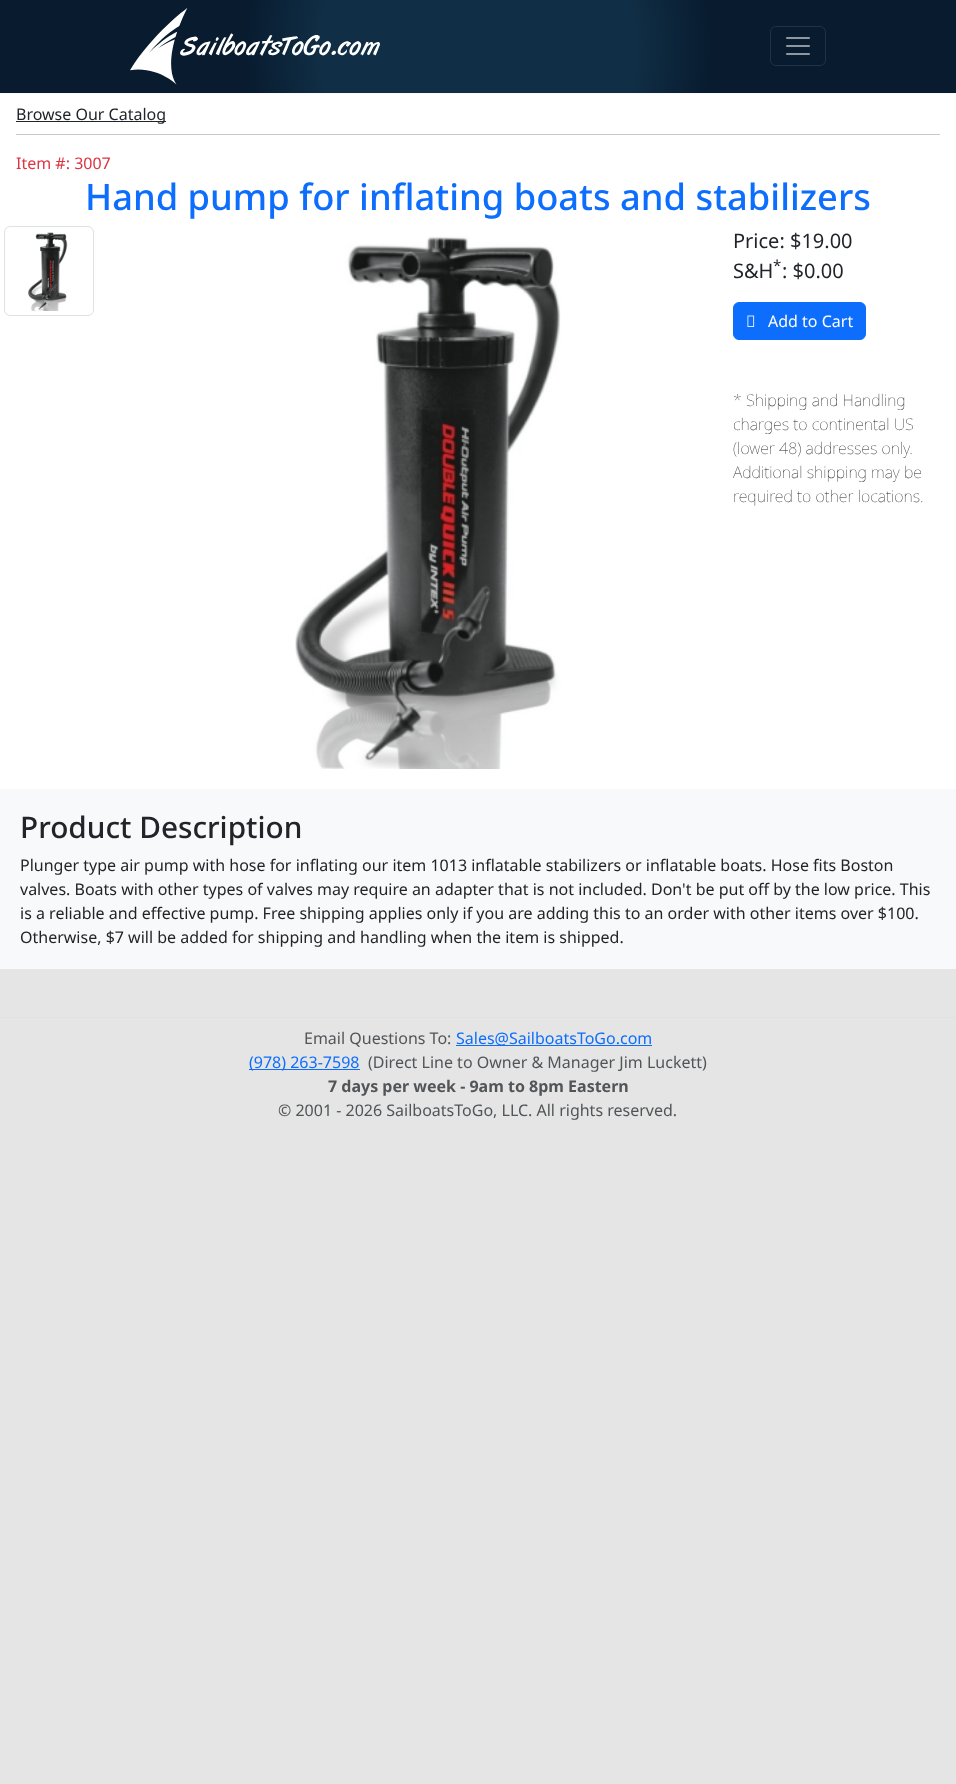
<svg xmlns="http://www.w3.org/2000/svg" width="956" height="1784" viewBox="0 0 956 1784">
  <style>
    .t1 { font: 16px Noto Sans; fill: #212529; }
    .t2 { font: 16px Noto Sans; fill: #dc3545; }
    .t3 { font: 500 36.3px Noto Sans; fill: #0d6efd; }
    .t4 { font: 20px Noto Sans; fill: #212529; }
    .t5 { font: 15px Noto Sans; fill: #212529; }
    .t6 { font: 16px Noto Sans; fill: #fff; }
    .t7 { font: 100 16px Noto Sans; fill: #212529; }
    .t8 { font: 500 29.75px Noto Sans; fill: #212529; }
    .t9 { font: 16px Noto Sans; fill: #525558; }
    .t10 { font: 16px Noto Sans; fill: #0d6efd; }
    .t11 { font: bold 16px Noto Sans; fill: #525558; }
  </style>
  <defs>
    <radialGradient id="g1" gradientUnits="userSpaceOnUse" cx="478" cy="47" r="480"><stop offset="0.33" stop-color="#102e45"/><stop offset="0.49" stop-color="#081b2f"/></radialGradient>
  </defs>
  <rect width="100%" height="100%" fill="#e5e5e5"/>
  <rect x="0" y="0" width="956" height="93" fill="url(#g1)"/>
  <rect x="0" y="93" width="956" height="1" fill="#f8f9fa"/>
  <image x="130" y="8" width="250" height="77" href="images/1.png"/>
  <rect x="770.5" y="26.5" width="55" height="39" rx="5.5" fill="none" stroke="#213244"/>
  <image x="786" y="37" width="24" height="18" href="images/2.png"/>
  <rect x="0" y="94" width="956" height="695" fill="#fff"/>
  <rect x="16" y="121" width="150" height="1" fill="#212529"/>
  <text x="16" y="120" class="t1">Browse Our Catalog</text>
  <rect x="16" y="134" width="924" height="1" fill="#c8c9ca"/>
  <text x="16" y="169" class="t2">Item #: 3007</text>
  <text x="85" y="210" class="t3">Hand pump for inflating boats and stabilizers</text>
  <rect x="4.5" y="226.5" width="89" height="89" rx="5.5" fill="none" stroke="#dee2e6"/>
  <image x="28" y="232" width="40" height="79" href="images/3.png"/>
  <image x="295" y="236" width="266" height="533" href="images/4.png"/>
  <text x="733" y="248" class="t4">Price: $19.00</text>
  <text x="733" y="278" class="t4">S&amp;H</text>
  <text x="773" y="271" class="t5">*</text>
  <text x="782" y="278" class="t4">: $0.00</text>
  <rect x="733.5" y="302.5" width="132" height="37" rx="5.5" fill="#0d6efd" stroke="#0d6efd"/>
  <image x="747" y="315" width="8" height="12" href="images/5.png"/>
  <text x="768" y="327" class="t6">Add to Cart</text>
  <text x="733" y="406" class="t7">* Shipping and Handling</text>
  <text x="733" y="430" class="t7">charges to continental US</text>
  <text x="733" y="454" class="t7">(lower 48) addresses only.</text>
  <text x="733" y="478" class="t7">Additional shipping may be</text>
  <text x="733" y="502" class="t7">required to other locations.</text>
  <rect x="0" y="789" width="956" height="180" fill="#f8f9fa"/>
  <text x="20" y="838" class="t8">Product Description</text>
  <text x="20" y="871" class="t1">Plunger type air pump with hose for inflating our item 1013 inflatable stabilizers or inflatable boats. Hose fits Boston</text>
  <text x="20" y="895" class="t1">valves. Boats with other types of valves may require an adapter that is not included. Don't be put off by the low price. This</text>
  <text x="20" y="919" class="t1">is a reliable and effective pump. Free shipping applies only if you are adding this to an order with other items over $100.</text>
  <text x="20" y="943" class="t1">Otherwise, $7 will be added for shipping and handling when the item is shipped.</text>
  <rect x="0" y="1017" width="956" height="1" fill="#dee2e6"/>
  <text x="304" y="1044" class="t9">Email Questions To:</text>
  <rect x="456" y="1045" width="196" height="1" fill="#0d6efd"/>
  <text x="456" y="1044" class="t10">Sales@SailboatsToGo.com</text>
  <rect x="249" y="1069" width="111" height="1" fill="#0d6efd"/>
  <text x="249" y="1068" class="t10">(978) 263-7598</text>
  <text x="368" y="1068" class="t9">(Direct Line to Owner &amp; Manager Jim Luckett)</text>
  <text x="328" y="1092" class="t11">7 days per week - 9am to 8pm Eastern</text>
  <text x="278" y="1116" class="t9">© 2001 - 2026 SailboatsToGo, LLC. All rights reserved.</text>
</svg>
